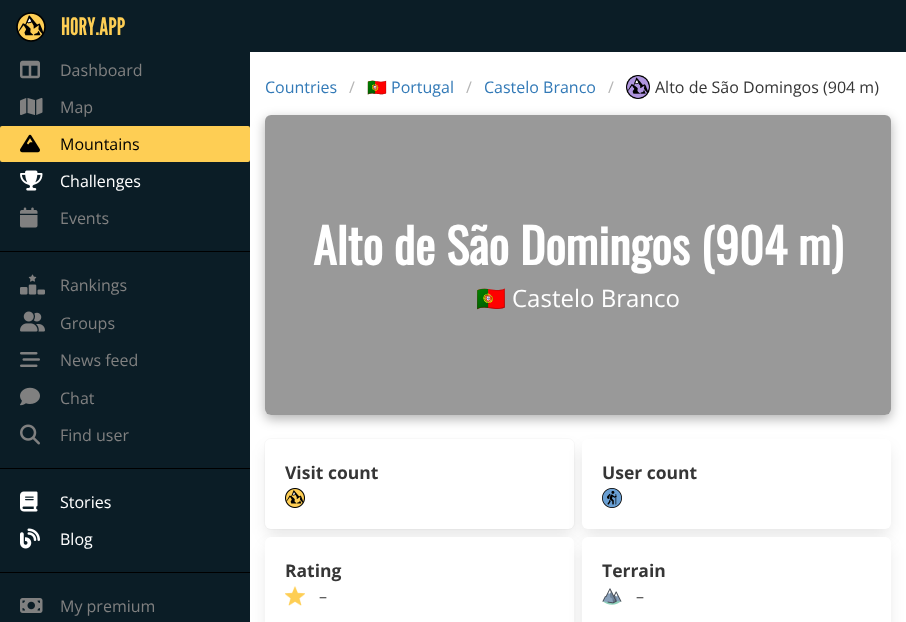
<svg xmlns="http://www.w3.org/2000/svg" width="906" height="622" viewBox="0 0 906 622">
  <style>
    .t1 { font: 24px League Gothic; fill: #fece54; }
    .t2 { font: 16px Open Sans; fill: #808080; }
    .t3 { font: 16px Open Sans; fill: #000; }
    .t4 { font: 16px Open Sans; fill: #fff; }
    .t5 { font: 16px Open Sans; fill: #337ab7; }
    .t6 { font: 16px Open Sans; fill: #b5b5b5; }
    .t7 { font: 16px Noto Color Emoji; fill: #337ab7; }
    .t8 { font: 16px Open Sans; fill: #363636; }
    .t9 { font: bold 48px Oswald; fill: #fff; }
    .t10 { font: 24px Noto Color Emoji; fill: #fff; }
    .t11 { font: 24px Open Sans; fill: #fff; }
    .t12 { font: bold 17.5px Open Sans; fill: #363636; }
    .t13 { font: 16px Open Sans; fill: #4a4a4a; }
  </style>
  <defs>
    <clipPath id="clip1"><path d="M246 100H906V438H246ZM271 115H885C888.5 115 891 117.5 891 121V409C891 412.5 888.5 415 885 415H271C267.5 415 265 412.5 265 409V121C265 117.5 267.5 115 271 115Z" clip-rule="evenodd"/></clipPath>
  </defs>
  <rect width="100%" height="100%" fill="#fff"/>
  <g clip-path="url(#clip1)">
    <rect x="265" y="119" width="626" height="300" rx="6" fill="#0000004d" filter="blur(6px)"/>
  </g>
  <rect x="264.5" y="438.5" width="310" height="91" rx="6.5" fill="none" stroke="#fafafa"/>
  <rect x="267" y="449" width="305" height="86" rx="4" fill="#0000001a" filter="blur(8px)"/>
  <rect x="265" y="439" width="309" height="90" rx="6" fill="#fff"/>
  <rect x="584" y="449" width="305" height="86" rx="4" fill="#0000001a" filter="blur(8px)"/>
  <rect x="582" y="439" width="309" height="90" rx="6" fill="#fff"/>
  <rect x="267" y="547" width="305" height="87" rx="4" fill="#0000001a" filter="blur(8px)"/>
  <rect x="0" y="0" width="250" height="622" fill="#0b1d26"/>
  <rect x="0" y="251" width="250" height="1" fill="#000"/>
  <image x="16" y="12" width="30" height="30" href="images/1.png"/>
  <text x="61" y="35" class="t1">HORY.APP</text>
  <image x="20" y="60" width="20" height="19" href="images/2.png"/>
  <text x="60" y="76" class="t2">Dashboard</text>
  <image x="20" y="97" width="23" height="18" href="images/3.png"/>
  <text x="60" y="113" class="t2">Map</text>
  <rect x="0" y="126" width="250" height="36" rx="2" fill="#fece54"/>
  <image x="20" y="134" width="20" height="19" href="images/4.png"/>
  <text x="60" y="150" class="t3">Mountains</text>
  <image x="20" y="170" width="23" height="21" href="images/5.png"/>
  <text x="60" y="187" class="t4">Challenges</text>
  <image x="20" y="207" width="18" height="21" href="images/6.png"/>
  <text x="60" y="224" class="t2">Events</text>
  <rect x="0" y="468" width="250" height="1" fill="#000"/>
  <image x="20" y="274" width="25" height="21" href="images/7.png"/>
  <text x="60" y="291" class="t2">Rankings</text>
  <image x="20" y="311" width="25" height="21" href="images/8.png"/>
  <text x="60" y="329" class="t2">Groups</text>
  <image x="20" y="352" width="20" height="15" href="images/9.png"/>
  <text x="60" y="366" class="t2">News feed</text>
  <image x="20" y="387" width="20" height="19" href="images/10.png"/>
  <text x="60" y="404" class="t2">Chat</text>
  <image x="20" y="424" width="20" height="21" href="images/11.png"/>
  <text x="60" y="441" class="t2">Find user</text>
  <rect x="0" y="572" width="250" height="1" fill="#000"/>
  <image x="20" y="491" width="18" height="21" href="images/12.png"/>
  <text x="60" y="508" class="t4">Stories</text>
  <image x="20" y="528" width="20" height="21" href="images/13.png"/>
  <text x="60" y="545" class="t4">Blog</text>
  <image x="20" y="598" width="23" height="15" href="images/14.png"/>
  <text x="60" y="612" class="t2">My premium</text>
  <rect x="250" y="0" width="656" height="52" fill="#0b1d26"/>
  <text x="265" y="93" class="t5">Countries</text>
  <text x="349" y="93" class="t6">/</text>
  <text x="367" y="93" class="t7">🇵🇹</text>
  <text x="391" y="93" class="t5">Portugal</text>
  <text x="466" y="93" class="t6">/</text>
  <text x="484" y="93" class="t5">Castelo Branco</text>
  <text x="608" y="93" class="t6">/</text>
  <image x="626" y="75" width="24" height="24" href="images/15.png"/>
  <text x="655" y="93" class="t8">Alto de São Domingos (904 m)</text>
  <rect x="265" y="115" width="626" height="300" rx="6" fill="#00000066"/>
  <text x="313" y="265" class="t9">Alto de São Domingos (904 m)</text>
  <text x="476" y="307" class="t10">🇵🇹</text>
  <text x="512" y="307" class="t11">Castelo Branco</text>
  <text x="285" y="479" class="t12">Visit count</text>
  <image x="285" y="488" width="20" height="20" href="images/16.png"/>
  <text x="602" y="479" class="t12">User count</text>
  <image x="602" y="488" width="20" height="20" href="images/17.png"/>
  <rect x="265" y="537" width="309" height="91" rx="6" fill="#fff"/>
  <text x="285" y="577" class="t12">Rating</text>
  <image x="285" y="586" width="20" height="20" href="images/18.png"/>
  <text x="319" y="602" class="t13">–</text>
  <rect x="584" y="547" width="305" height="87" rx="4" fill="#0000001a" filter="blur(8px)"/>
  <rect x="582" y="537" width="309" height="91" rx="6" fill="#fff"/>
  <text x="602" y="577" class="t12">Terrain</text>
  <image x="602" y="588" width="20" height="17" href="images/19.png"/>
  <text x="636" y="602" class="t13">–</text>
</svg>
